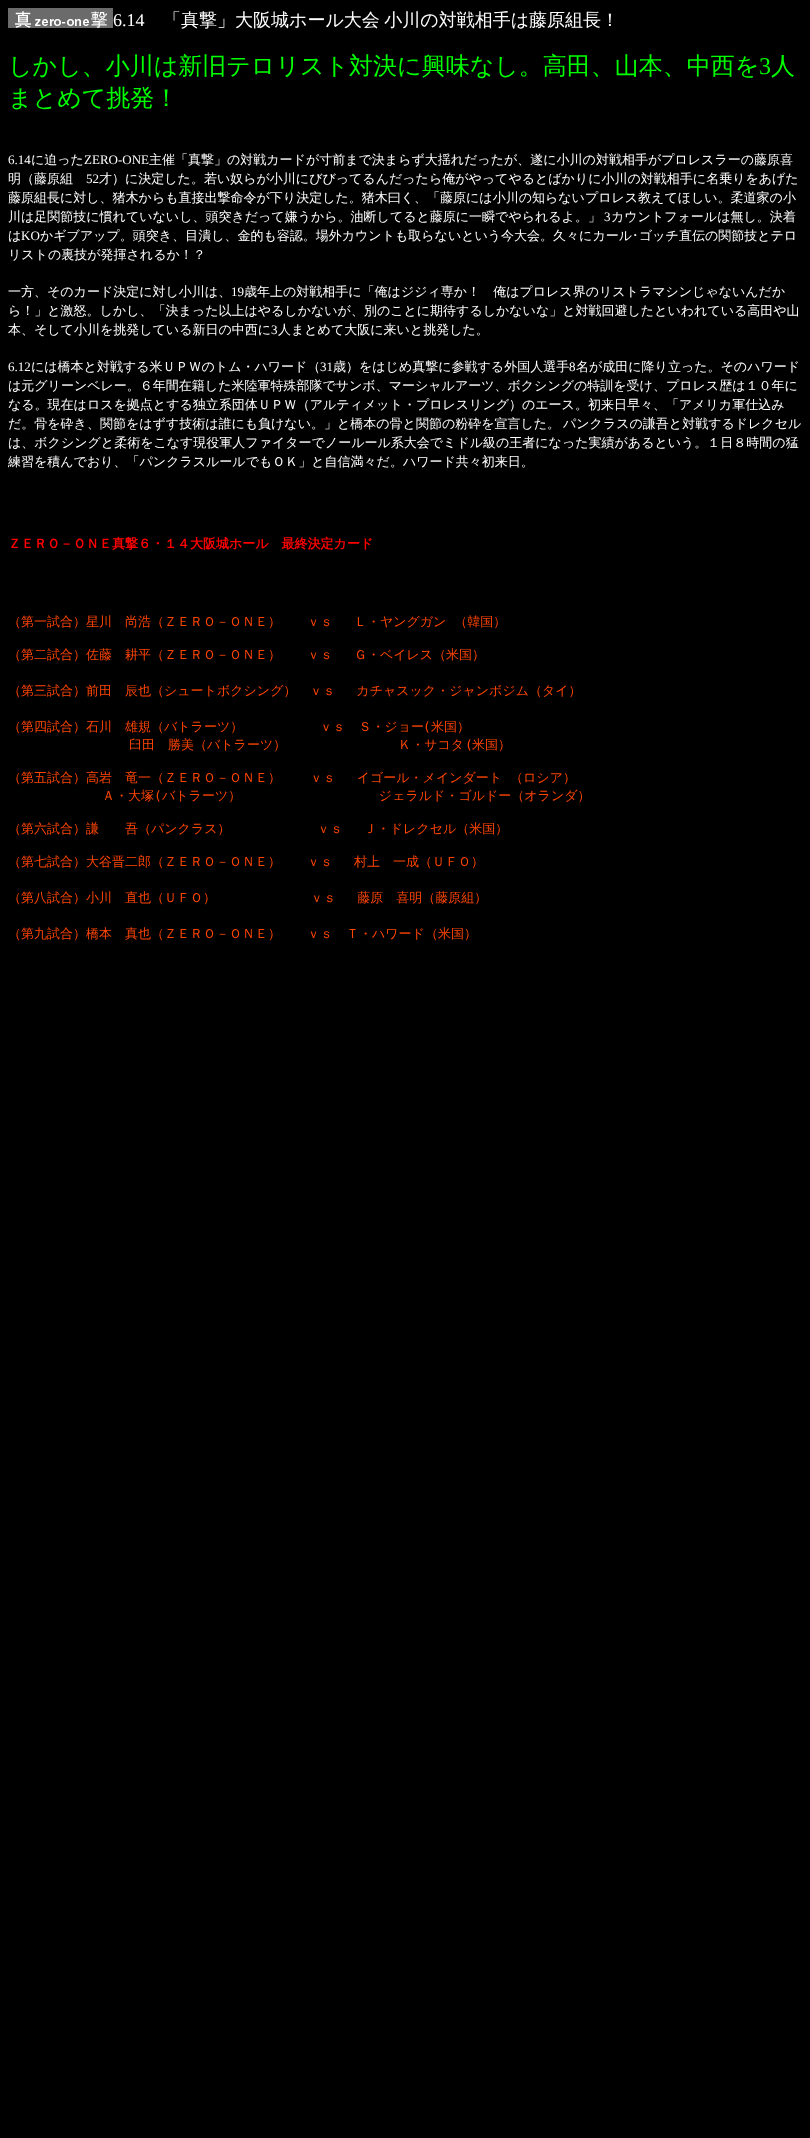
<svg xmlns="http://www.w3.org/2000/svg" width="810" height="2138" viewBox="0 0 810 2138">
  <style>
    .t1 { font: 18px Liberation Serif; fill: #fff; }
    .t2 { font: 500 18px WenQuanYi Zen Hei; fill: #fff; }
    .t3 { font: 500 24px WenQuanYi Zen Hei; fill: #0f0; }
    .t4 { font: 24px Liberation Serif; fill: #0f0; }
    .t5 { font: 13px Liberation Serif; fill: #fff; }
    .t6 { font: 500 13px WenQuanYi Zen Hei; fill: #fff; }
    .t7 { font: 13px IPAPGothic; fill: #fff; }
    .t8 { font: bold 13px WenQuanYi Zen Hei; fill: #f00; }
    .t9 { font: 500 13px WenQuanYi Zen Hei; fill: #ff4500; }
    .t10 { font: 13px DejaVu Sans Mono; fill: #ff4500; }
  </style>
  <rect width="100%" height="100%" fill="#000"/>
  <image x="8" y="8" width="105" height="20" href="images/1.png"/>
  <text x="113" y="26" class="t1">6.14</text>
  <text x="163" y="26" word-spacing="-1" class="t2">「真撃」大阪城ホール大会 小川の対戦相手は藤原組長！</text>
  <text x="8" y="74" class="t3">しかし、小川は新旧テロリスト対決に興味なし。高田、山本、中西を</text>
  <text x="759" y="74" class="t4">3</text>
  <text x="771" y="74" class="t3">人</text>
  <text x="8" y="106" class="t3">まとめて挑発！</text>
  <text x="8" y="164" class="t5">6.14</text>
  <text x="31" y="164" class="t6">に迫った</text>
  <text x="84" y="164" class="t5">ZERO-ONE</text>
  <text x="149" y="164" class="t6">主催「真撃」の対戦カードが寸前まで決まらず大揺れだったが、遂に小川の対戦相手がプロレスラーの藤原喜</text>
  <text x="8" y="183" class="t6">明（藤原組</text>
  <text x="86" y="183" class="t5">52</text>
  <text x="99" y="183" class="t6">才）に決定した。若い奴らが小川にびびってるんだったら俺がやってやるとばかりに小川の対戦相手に名乗りをあげた</text>
  <text x="8" y="202" class="t6">藤原組長に対し、猪木からも直接出撃命令が下り決定した。猪木曰く、「藤原には小川の知らないプロレス教えてほしい。柔道家の小</text>
  <text x="8" y="221" class="t6">川は足関節技に慣れていないし、頭突きだって嫌うから。油断してると藤原に一瞬でやられるよ。」</text>
  <text x="604" y="221" class="t5">3</text>
  <text x="611" y="221" class="t6">カウントフォールは無し。決着</text>
  <text x="8" y="240" class="t6">は</text>
  <text x="21" y="240" class="t5">KO</text>
  <text x="40" y="240" class="t6">かギブアップ。頭突き、目潰し、金的も容認。場外カウントも取らないという今大会。久々にカール</text>
  <text x="632" y="240" class="t7">･</text>
  <text x="639" y="240" class="t6">ゴッチ直伝の関節技とテロ</text>
  <text x="8" y="259" class="t6">リストの裏技が発揮されるか！？</text>
  <text x="8" y="296" class="t6">一方、そのカード決定に対し小川は、</text>
  <text x="231" y="296" class="t5">19</text>
  <text x="244" y="296" class="t6">歳年上の対戦相手に「俺はジジィ専か！　俺はプロレス界のリストラマシンじゃないんだか</text>
  <text x="8" y="315" class="t6">ら！」と激怒。しかし、「決まった以上はやるしかないが、別のことに期待するしかないな」と対戦回避したといわれている高田や山</text>
  <text x="8" y="334" class="t6">本、そして小川を挑発している新日の中西に</text>
  <text x="271" y="334" class="t5">3</text>
  <text x="278" y="334" class="t6">人まとめて大阪に来いと挑発した。</text>
  <text x="8" y="371" class="t5">6.12</text>
  <text x="31" y="371" class="t6">には橋本と対戦する米ＵＰＷのトム・ハワード（</text>
  <text x="320" y="371" class="t5">31</text>
  <text x="333" y="371" class="t6">歳）をはじめ真撃に参戦する外国人選手</text>
  <text x="569" y="371" class="t5">8</text>
  <text x="576" y="371" class="t6">名が成田に降り立った。そのハワード</text>
  <text x="8" y="390" class="t6">は元グリーンベレー。６年間在籍した米陸軍特殊部隊でサンボ、マーシャルアーツ、ボクシングの特訓を受け、プロレス歴は１０年に</text>
  <text x="8" y="409" class="t6">なる。現在はロスを拠点とする独立系団体ＵＰＷ（アルティメット・プロレスリング）のエース。初来日早々、「アメリカ軍仕込み</text>
  <text x="8" y="428" class="t6">だ。骨を砕き、関節をはずす技術は誰にも負けない。」と橋本の骨と関節の粉砕を宣言した。</text>
  <text x="563" y="428" class="t6">パンクラスの謙吾と対戦するドレクセル</text>
  <text x="8" y="447" class="t6">は、ボクシングと柔術をこなす現役軍人ファイターでノールール系大会でミドル級の王者になった実績があるという。１日８時間の猛</text>
  <text x="8" y="466" class="t6">練習を積んでおり、「パンクラスルールでもＯＫ」と自信満々だ。ハワード共々初来日。</text>
  <text x="8" y="548" class="t8">ＺＥＲＯ－ＯＮＥ真撃６・１４大阪城ホール　最終決定カード</text>
  <text x="8" y="626" word-spacing="4" class="t9">（第一試合）星川　尚浩（ＺＥＲＯ－ＯＮＥ）　　ｖｓ　 Ｌ・ヤングガン （韓国）</text>
  <text x="8" y="659" word-spacing="4" class="t9">（第二試合）佐藤　耕平（ＺＥＲＯ－ＯＮＥ）　　ｖｓ　 Ｇ・ベイレス（米国）</text>
  <text x="8" y="695" word-spacing="4" class="t9">（第三試合）前田　辰也（シュートボクシング）　ｖｓ　 カチャスック・ジャンボジム（タイ）</text>
  <text x="8" y="731" word-spacing="4" class="t9" xml:space="preserve">（第四試合）石川　雄規（バトラーツ）　        ｖｓ　Ｓ・ジョー</text>
  <text x="423" y="731" class="t10">(</text>
  <text x="431" y="731" class="t9">米国）</text>
  <text x="129" y="749" word-spacing="3.1" class="t9" xml:space="preserve">臼田　勝美（バトラーツ）                Ｋ・サコタ</text>
  <text x="465" y="749" class="t10">(</text>
  <text x="472" y="749" class="t9">米国）</text>
  <text x="8" y="782" word-spacing="4" class="t9" xml:space="preserve">（第五試合）高岩　竜一（ＺＥＲＯ－ＯＮＥ）　  ｖｓ　 イゴール・メインダート （ロシア）</text>
  <text x="102" y="800" class="t9">Ａ・大塚</text>
  <text x="154" y="800" class="t10">(</text>
  <text x="162" y="800" word-spacing="3.75" class="t9" xml:space="preserve">バトラーツ）                  ジェラルド・ゴルドー（オランダ）</text>
  <text x="8" y="833" word-spacing="4" class="t9" xml:space="preserve">（第六試合）謙　　吾（パンクラス）　　      　ｖｓ　 Ｊ・ドレクセル（米国）</text>
  <text x="8" y="866" word-spacing="4" class="t9">（第七試合）大谷晋二郎（ＺＥＲＯ－ＯＮＥ）　　ｖｓ　 村上　一成（ＵＦＯ）</text>
  <text x="8" y="902" word-spacing="4" class="t9" xml:space="preserve">（第八試合）小川　直也（ＵＦＯ）　　　       ｖｓ　 藤原　喜明（藤原組）</text>
  <text x="8" y="938" class="t9">（第九試合）橋本　真也（ＺＥＲＯ－ＯＮＥ）　　ｖｓ　Ｔ・ハワード（米国）</text>
</svg>
